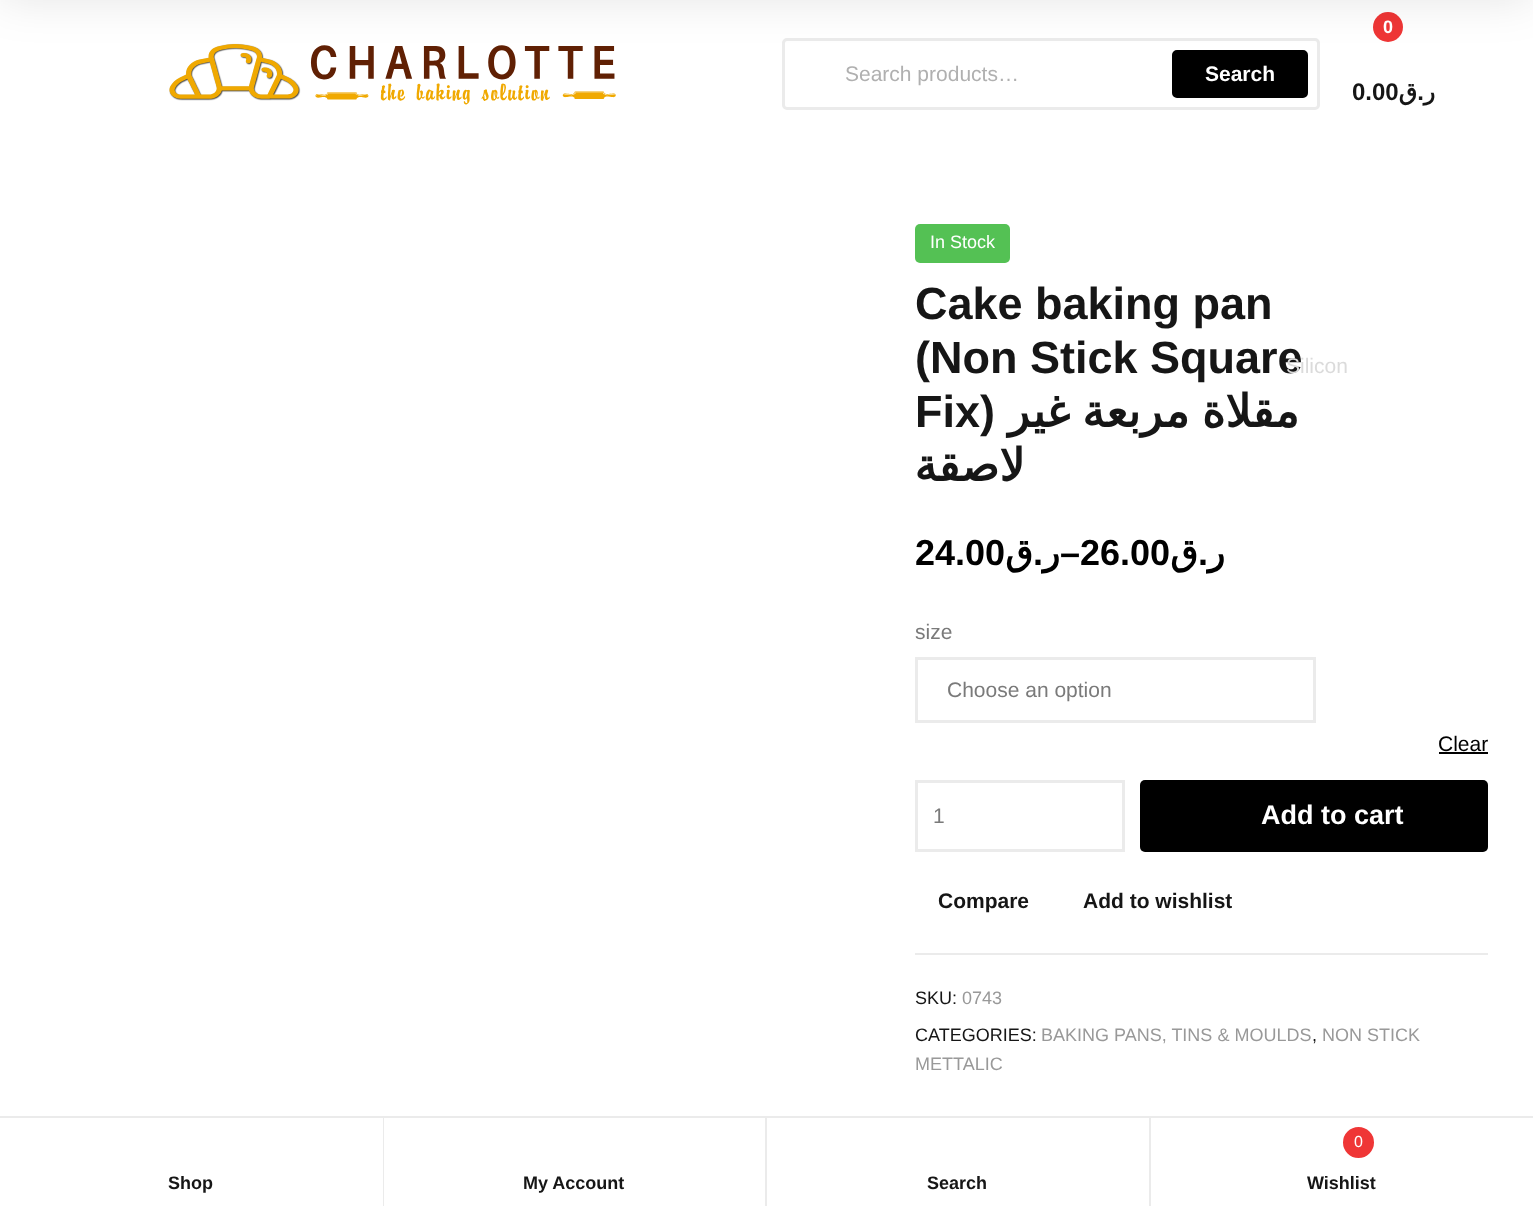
<svg xmlns="http://www.w3.org/2000/svg" width="1533" height="1206" viewBox="0 0 1533 1206">
  <style>
    .t1 { font: 21px Liberation Sans; fill: #b0b0b0; }
    .t2 { font: bold 21px Liberation Sans; fill: #fff; }
    .t3 { font: bold 18px Liberation Sans; fill: #fff; }
    .t4 { font: bold 24px Liberation Sans; fill: #161616; }
    .t5 { font: bold 24px DejaVu Sans; direction: rtl; fill: #161616; }
    .t6 { font: bold 24px Liberation Sans; direction: rtl; fill: #161616; }
    .t7 { font: 18px Liberation Sans; fill: #fff; }
    .t8 { font: bold 45px Liberation Sans; fill: #161616; }
    .t9 { font: bold 45px DejaVu Sans; direction: rtl; fill: #161616; }
    .t10 { font: 21px Liberation Sans; fill: #dbdbdb; }
    .t11 { font: bold 36px Liberation Sans; fill: #000; }
    .t12 { font: bold 36px DejaVu Sans; direction: rtl; fill: #000; }
    .t13 { font: bold 36px Liberation Sans; direction: rtl; fill: #000; }
    .t14 { font: 21px Liberation Sans; fill: #7a7a7a; }
    .t15 { font: 21px Liberation Sans; fill: #000; }
    .t16 { font: bold 27px Liberation Sans; fill: #fff; }
    .t17 { font: bold 21px Liberation Sans; fill: #161616; }
    .t18 { font: 18px Liberation Sans; fill: #161616; }
    .t19 { font: 18px Liberation Sans; fill: #999; }
    .t20 { font: bold 18px Liberation Sans; fill: #161616; }
    .t21 { font: 16px Liberation Sans; fill: #fff; }
  </style>
  <rect width="100%" height="100%" fill="#fff"/>
  <image x="169" y="43" width="447" height="62" href="images/1.png"/>
  <rect x="783.5" y="39.5" width="535" height="69" rx="3.5" fill="none" stroke="#ebebeb" stroke-width="3"/>
  <rect x="1173.5" y="51.5" width="133" height="45" rx="3.5" fill="#000" stroke="#000" stroke-width="3"/>
  <circle cx="1388" cy="27" r="15" fill="#ef3636"/>
  <rect x="0" y="-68" width="1533" height="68" fill="#0000001a" filter="blur(22.5px)"/>
  <text x="845" y="81" class="t1">Search products…</text>
  <text x="1205" y="81" class="t2">Search</text>
  <text x="1383" y="33" class="t3">0</text>
  <text x="1352" y="100" class="t4">0.00</text>
  <text x="1417" y="100" class="t5">ق</text>
  <text x="1424" y="100" class="t6">.</text>
  <text x="1435" y="100" class="t5">ر</text>
  <rect x="915" y="224" width="95" height="39" rx="5" fill="#54c154"/>
  <text x="930" y="248" class="t7">In Stock</text>
  <text x="915" y="319" class="t8">Cake baking pan</text>
  <text x="915" y="373" class="t8">(Non Stick Square</text>
  <text x="915" y="427" class="t8">Fix)</text>
  <text x="1299" y="427" word-spacing="-2" class="t9">مقلاة مربعة غير</text>
  <text x="1025" y="481" class="t9">لاصقة</text>
  <text x="1286" y="373" class="t10">Silicon</text>
  <text x="915" y="565" class="t11">24.00</text>
  <text x="1033" y="565" class="t12">ق</text>
  <text x="1043" y="565" class="t13">.</text>
  <text x="1060" y="565" class="t12">ر</text>
  <text x="1060" y="565" class="t11">–26.00</text>
  <text x="1198" y="565" class="t12">ق</text>
  <text x="1208" y="565" class="t13">.</text>
  <text x="1225" y="565" class="t12">ر</text>
  <text x="915" y="639" class="t14">size</text>
  <rect x="916.5" y="658.5" width="398" height="63" fill="none" stroke="#ebebeb" stroke-width="3"/>
  <text x="947" y="697" class="t14">Choose an option</text>
  <text x="1438" y="751" class="t15">Clear</text>
  <rect x="1439" y="752" width="49" height="2" fill="#000"/>
  <rect x="916.5" y="781.5" width="207" height="69" fill="none" stroke="#ebebeb" stroke-width="3"/>
  <text x="933" y="823" class="t14">1</text>
  <rect x="1140" y="780" width="348" height="72" rx="5" fill="#000"/>
  <text x="1261" y="824" class="t16">Add to cart</text>
  <text x="938" y="908" class="t17">Compare</text>
  <text x="1083" y="908" class="t17">Add to wishlist</text>
  <rect x="915" y="953" width="573" height="2" fill="#ebebeb"/>
  <text x="915" y="1004" class="t18">SKU:</text>
  <text x="962" y="1004" class="t19">0743</text>
  <text x="915" y="1041" class="t18">CATEGORIES:</text>
  <text x="1041" y="1041" class="t19">BAKING PANS, TINS &amp; MOULDS</text>
  <text x="1312" y="1041" class="t18">,</text>
  <text x="1322" y="1041" class="t19">NON STICK</text>
  <text x="915" y="1070" class="t19">METTALIC</text>
  <rect x="0" y="1116" width="1533" height="2" fill="#ebebeb"/>
  <rect x="383" y="1118" width="1" height="88" fill="#ebebeb"/>
  <text x="168" y="1189" class="t20">Shop</text>
  <rect x="765" y="1118" width="2" height="88" fill="#ebebeb"/>
  <text x="523" y="1189" class="t20">My Account</text>
  <rect x="1149" y="1118" width="2" height="88" fill="#ebebeb"/>
  <text x="927" y="1189" class="t20">Search</text>
  <circle cx="1358.5" cy="1142.5" r="16.5" fill="#ef3636" stroke="#fff" stroke-width="2"/>
  <text x="1354" y="1147" class="t21">0</text>
  <text x="1307" y="1189" class="t20">Wishlist</text>
</svg>
